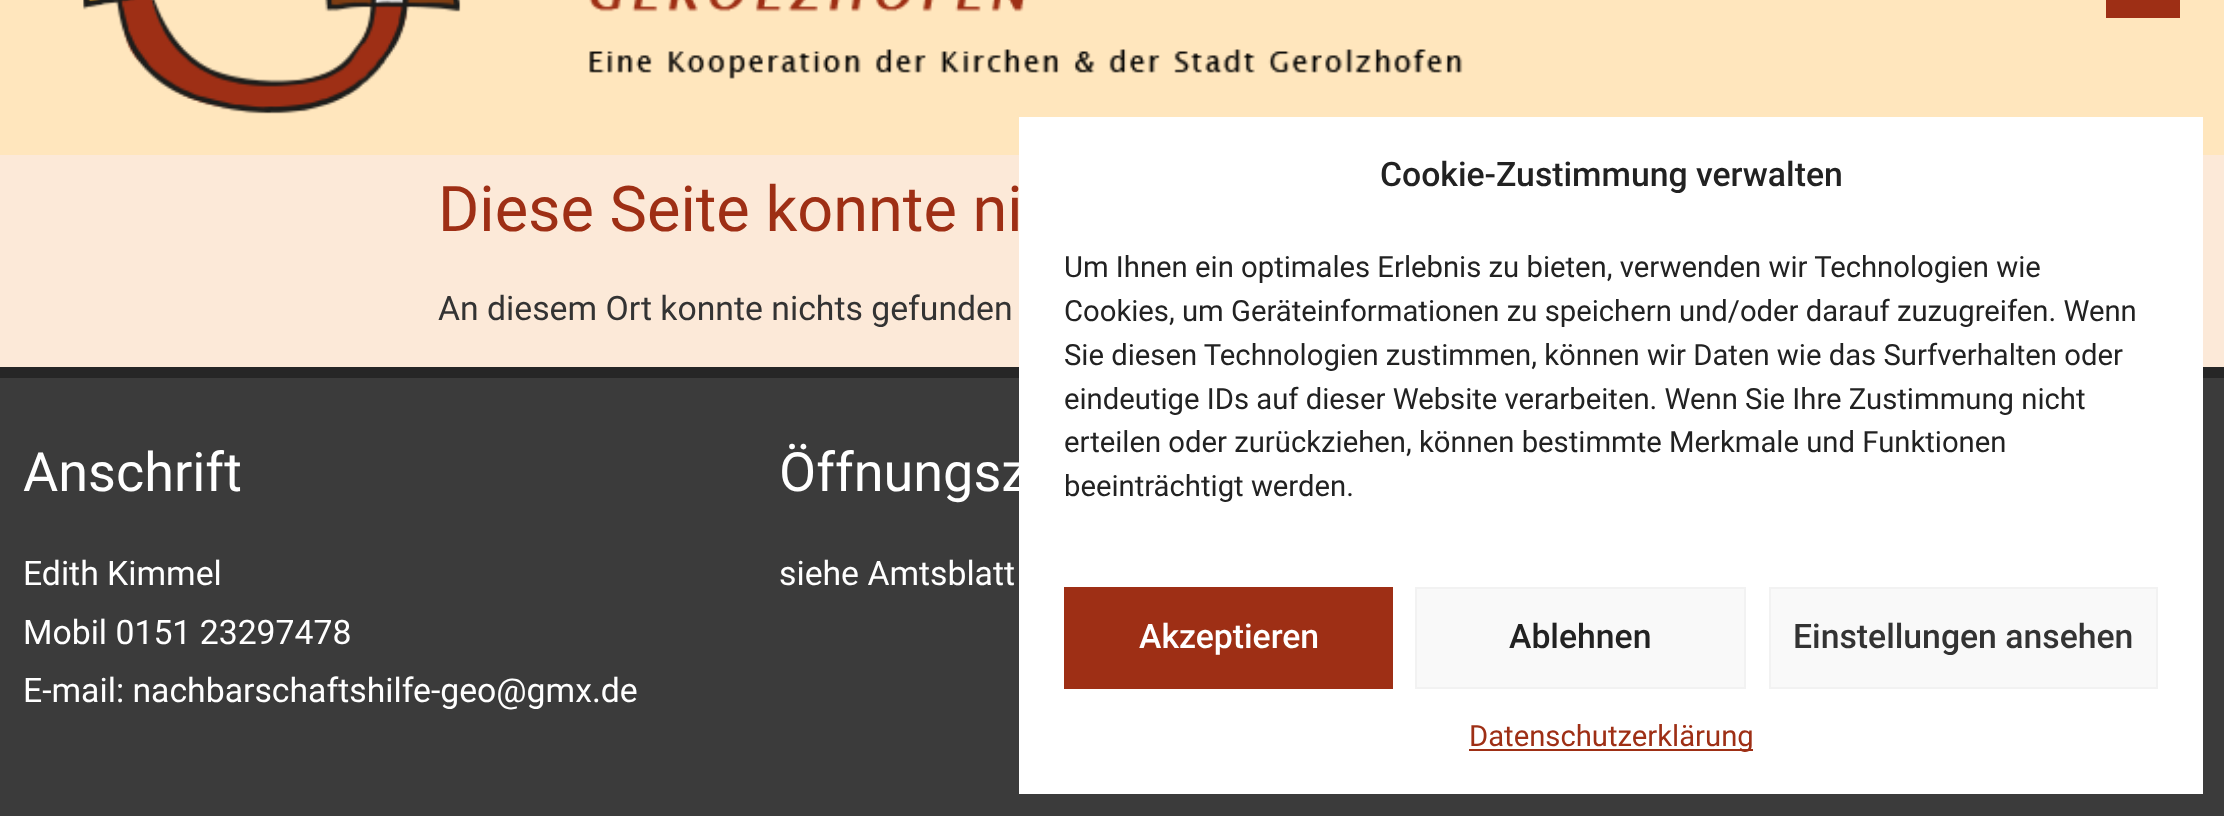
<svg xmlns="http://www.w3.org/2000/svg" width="2224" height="816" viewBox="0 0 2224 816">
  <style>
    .t1 { font: 63px Roboto; fill: #9e2f15; }
    .t2 { font: 33.75px Roboto; fill: #333; }
    .t3 { font: 500 33.75px Roboto; fill: #222; }
    .t4 { font: 29.25px Roboto; fill: #222; }
    .t5 { font: 500 33.75px Roboto; fill: #fff; }
    .t6 { font: 500 33.75px Roboto; fill: #333; }
    .t7 { font: 29.25px Roboto; fill: #9e2f15; }
    .t8 { font: 54px Roboto; fill: #fff; }
    .t9 { font: 33.75px Roboto; fill: #fff; }
  </style>
  <rect width="100%" height="100%" fill="#fce9d8"/>
  <rect x="0" y="0" width="2224" height="155" fill="#ffe6bd"/>
  <image x="83" y="0" width="1380" height="114" href="images/1.png"/>
  <rect x="2106" y="0" width="74" height="18" fill="#9e2f15"/>
  <text x="438" y="231" class="t1">Diese Seite konnte ni</text>
  <text x="438" y="320" class="t2">An diesem Ort konnte nichts gefunden</text>
  <rect x="0" y="378" width="2224" height="438" fill="#3b3b3b"/>
  <rect x="0" y="367" width="2224" height="11" fill="#262626"/>
  <rect x="1019" y="117" width="1184" height="677" fill="#fff"/>
  <text x="1380" y="186" class="t3">Cookie-Zustimmung verwalten</text>
  <text x="1064" y="277" class="t4">Um Ihnen ein optimales Erlebnis zu bieten, verwenden wir Technologien wie</text>
  <text x="1064" y="321" class="t4">Cookies, um Geräteinformationen zu speichern und/oder darauf zuzugreifen. Wenn</text>
  <text x="1064" y="365" class="t4">Sie diesen Technologien zustimmen, können wir Daten wie das Surfverhalten oder</text>
  <text x="1064" y="409" class="t4">eindeutige IDs auf dieser Website verarbeiten. Wenn Sie Ihre Zustimmung nicht</text>
  <text x="1064" y="452" class="t4">erteilen oder zurückziehen, können bestimmte Merkmale und Funktionen</text>
  <text x="1064" y="496" class="t4">beeinträchtigt werden.</text>
  <rect x="1064" y="587" width="329" height="102" fill="#9e2f15"/>
  <text x="1139" y="648" class="t5">Akzeptieren</text>
  <rect x="1416" y="588" width="329" height="100" fill="#f9f9f9" stroke="#f2f2f2" stroke-width="2"/>
  <text x="1509" y="648" class="t3">Ablehnen</text>
  <rect x="1770" y="588" width="387" height="100" fill="#f9f9f9" stroke="#f2f2f2" stroke-width="2"/>
  <text x="1793" y="648" class="t6">Einstellungen ansehen</text>
  <rect x="1469" y="749" width="284" height="2" fill="#9e2f15"/>
  <text x="1469" y="746" class="t7">Datenschutzerklärung</text>
  <text x="23" y="491" class="t8">Anschrift</text>
  <text x="23" y="585" class="t9">Edith Kimmel</text>
  <text x="23" y="644" class="t9">Mobil 0151 23297478</text>
  <text x="23" y="702" class="t9">E-mail: nachbarschaftshilfe-geo@gmx.de</text>
  <text x="779" y="491" class="t8">Öffnungsz</text>
  <text x="779" y="585" class="t9">siehe Amtsblatt</text>
</svg>
